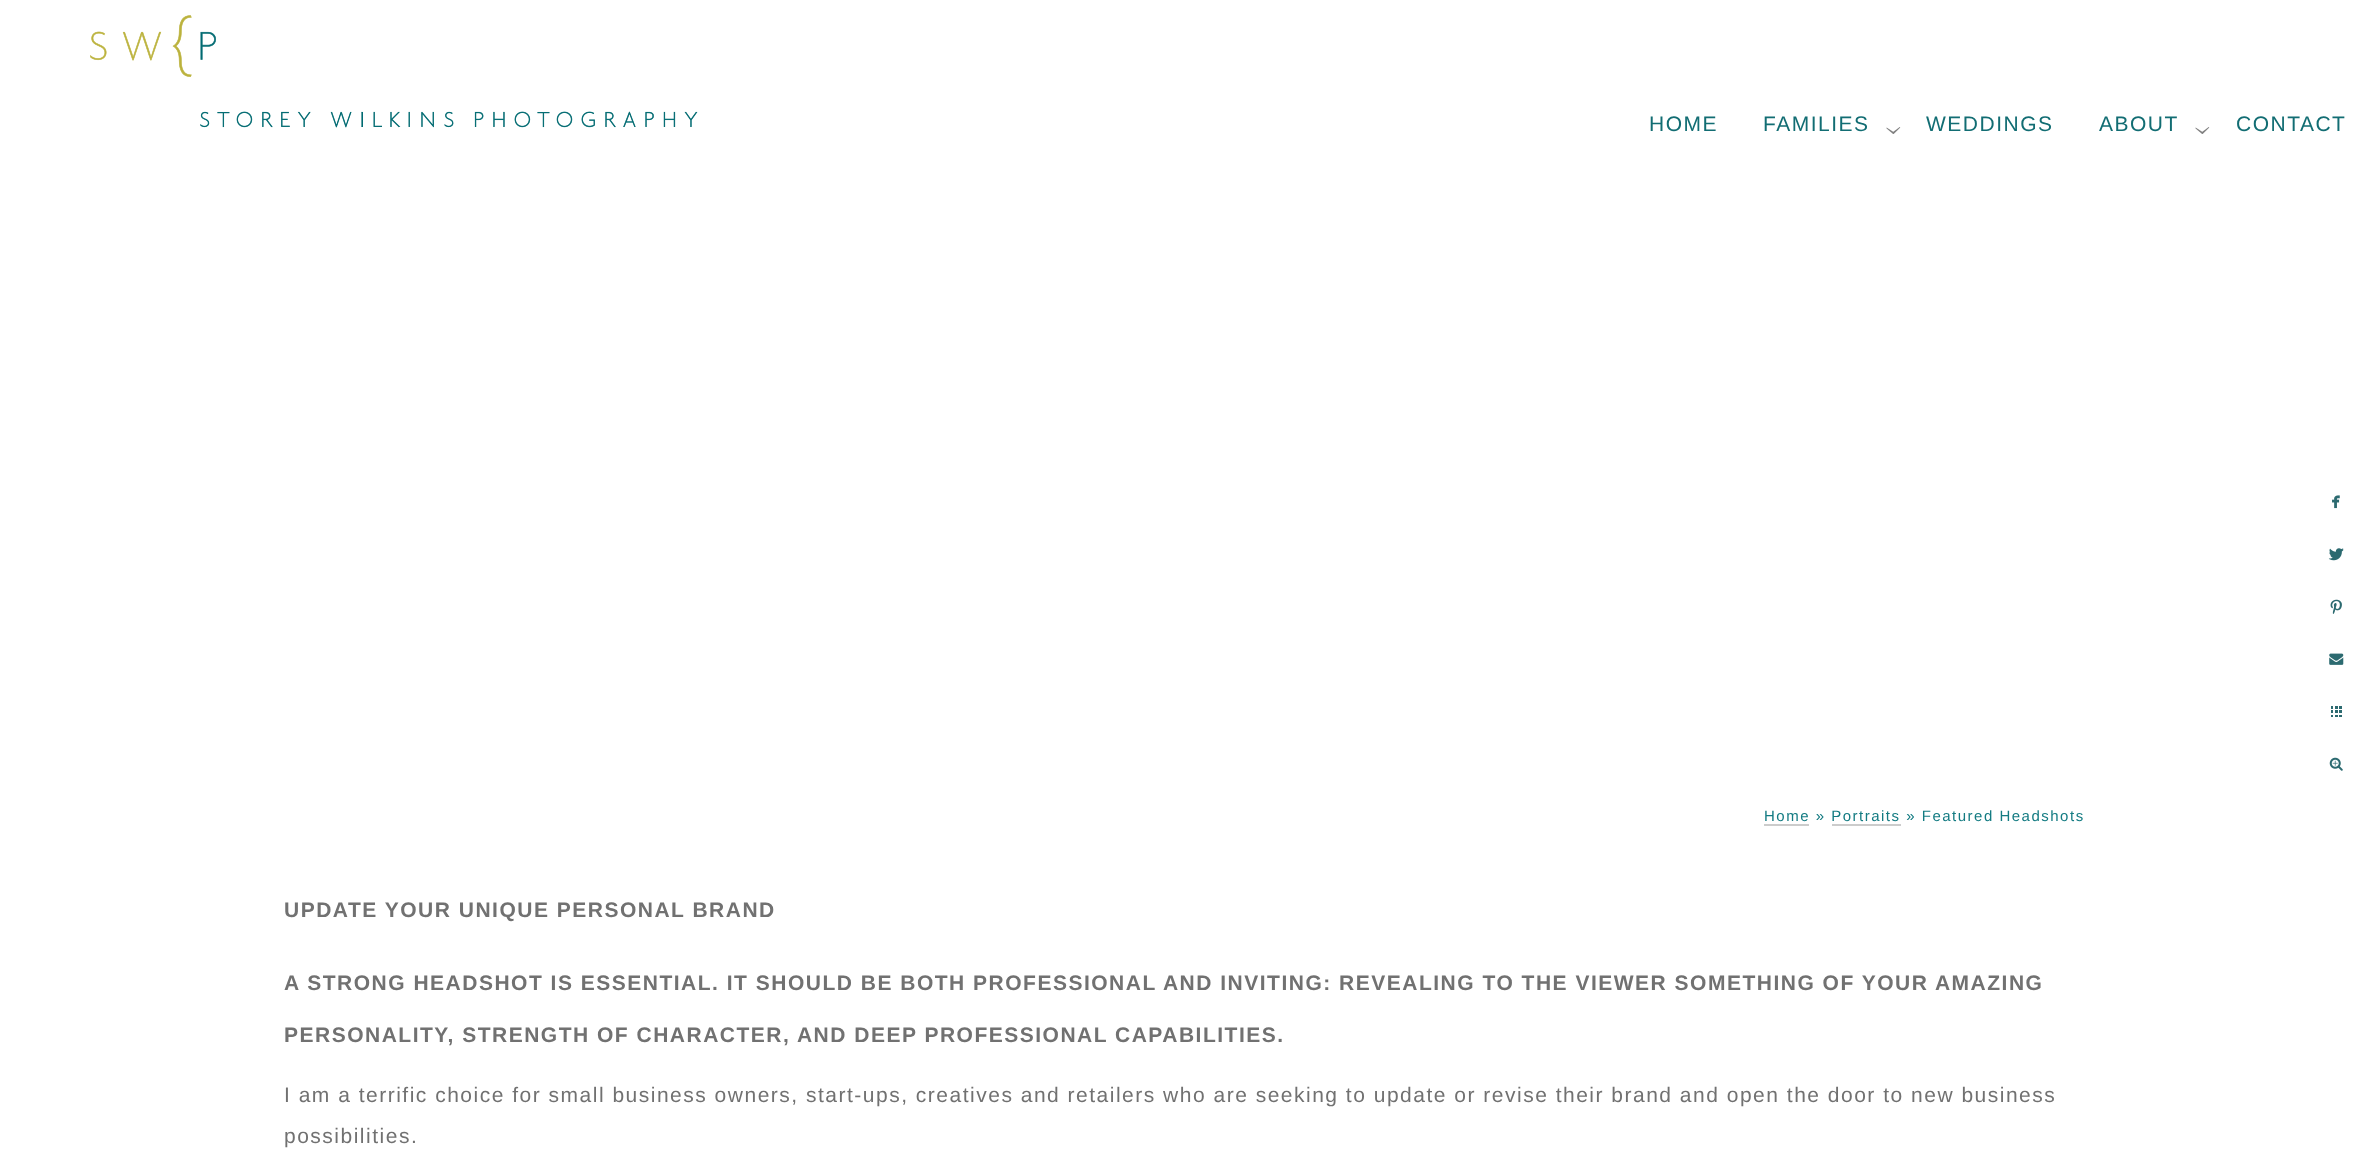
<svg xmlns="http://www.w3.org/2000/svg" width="2368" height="1174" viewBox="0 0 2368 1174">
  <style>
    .t1 { font: 21px Liberation Sans; letter-spacing: 1.5px; fill: #126d73; }
    .t2 { font: 15px Liberation Sans; letter-spacing: 1.5px; fill: #137b82; }
    .t3 { font: bold 21px Liberation Sans; letter-spacing: 1.5px; fill: #717171; }
    .t4 { font: 21px Liberation Sans; letter-spacing: 1.5px; fill: #717171; }
  </style>
  <rect width="100%" height="100%" fill="#fff"/>
  <image x="90" y="15" width="608" height="113" href="images/1.png"/>
  <text x="1649" y="131" class="t1">HOME</text>
  <text x="1763" y="131" class="t1">FAMILIES</text>
  <image x="1886" y="127" width="15" height="7" href="images/2.png"/>
  <text x="1926" y="131" class="t1">WEDDINGS</text>
  <text x="2099" y="131" class="t1">ABOUT</text>
  <image x="2195" y="127" width="15" height="7" href="images/2.png"/>
  <text x="2236" y="131" class="t1">CONTACT</text>
  <image x="2332" y="495" width="8" height="14" href="images/3.png"/>
  <image x="2328" y="548" width="16" height="13" href="images/4.png"/>
  <image x="2330" y="599" width="12" height="15" href="images/5.png"/>
  <image x="2329" y="653" width="15" height="12" href="images/6.png"/>
  <image x="2331" y="706" width="11" height="11" href="images/7.png"/>
  <image x="2329" y="757" width="14" height="14" href="images/8.png"/>
  <text x="1764" y="821" class="t2">Home » Portraits » Featured Headshots</text>
  <rect x="1764" y="824" width="45" height="2" fill="#ccc"/>
  <rect x="1832" y="824" width="69" height="2" fill="#ccc"/>
  <text x="284" y="917" class="t3">UPDATE YOUR UNIQUE PERSONAL BRAND</text>
  <text x="284" y="990" class="t3">A STRONG HEADSHOT IS ESSENTIAL. IT SHOULD BE BOTH PROFESSIONAL AND INVITING: REVEALING TO THE VIEWER SOMETHING OF YOUR AMAZING</text>
  <text x="284" y="1042" class="t3">PERSONALITY, STRENGTH OF CHARACTER, AND DEEP PROFESSIONAL CAPABILITIES.</text>
  <text x="284" y="1102" class="t4">I am a terrific choice for small business owners, start-ups, creatives and retailers who are seeking to update or revise their brand and open the door to new business</text>
  <text x="284" y="1143" class="t4">possibilities.</text>
</svg>
